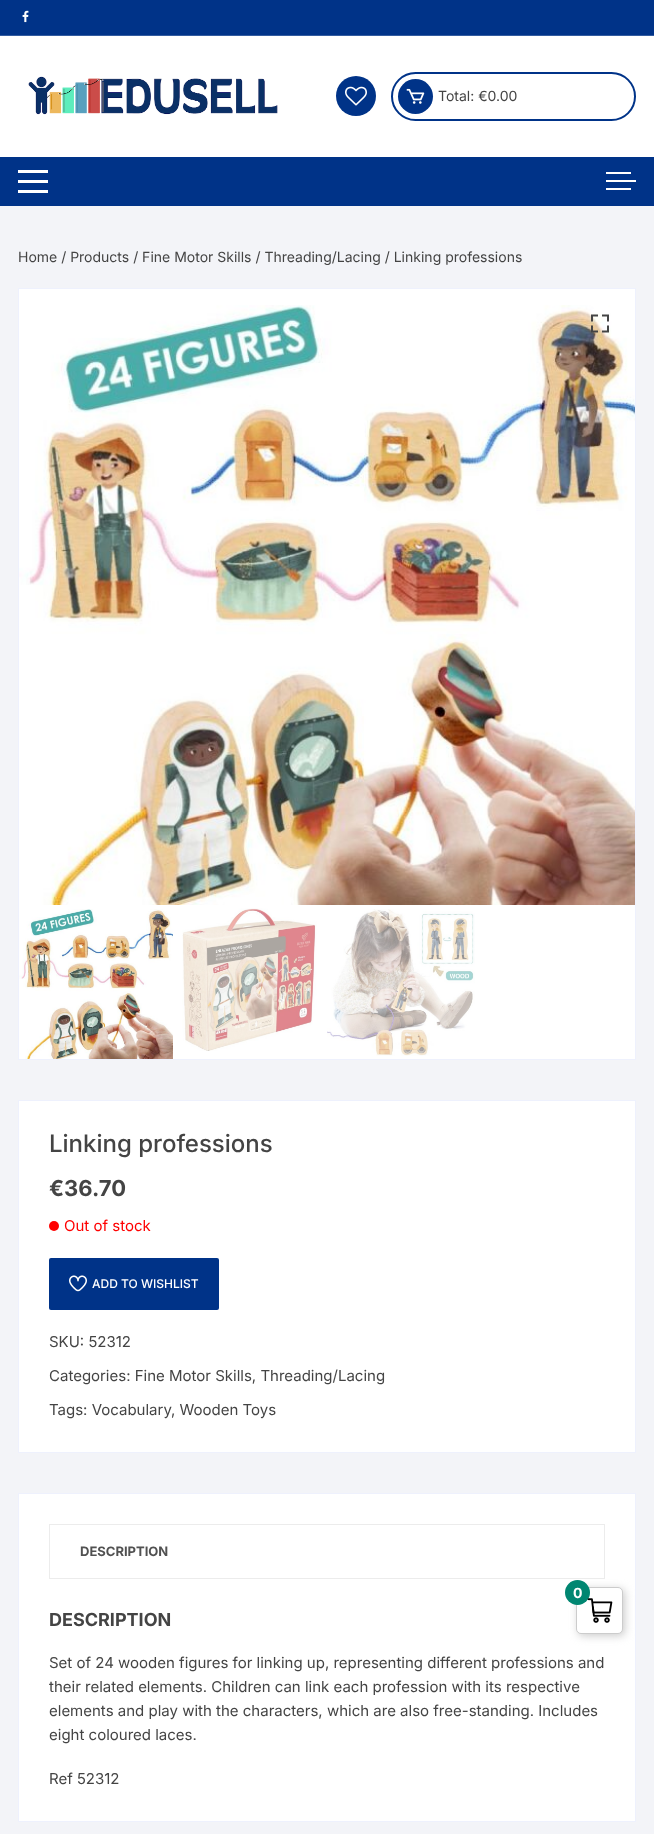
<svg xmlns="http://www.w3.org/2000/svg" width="654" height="1834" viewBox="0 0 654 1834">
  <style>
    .t1 { font: 14px Inter; fill: #444; }
    .t2 { font: 500 24px Inter; fill: #444; }
    .t3 { font: bold 22px Inter; fill: #444; }
    .t4 { font: 15px Inter; fill: #f00; }
    .t5 { font: 500 12px Inter; fill: #fff; }
    .t6 { font: 15px Inter; fill: #444; }
    .t7 { font: bold 13px Inter; fill: #515151; }
    .t8 { font: bold 18px Inter; fill: #444; }
    .t9 { font: bold 14px Inter; fill: #fff; }
  </style>
  <rect width="100%" height="100%" fill="#f3f4f8"/>
  <rect x="0" y="36" width="654" height="121" fill="#fff"/>
  <rect x="0" y="0" width="654" height="35" fill="#038"/>
  <rect x="0" y="35" width="654" height="1" fill="#335ca0"/>
  <image x="22" y="10" width="7" height="13" href="images/1.png"/>
  <image x="28" y="76" width="250" height="39" href="images/2.png"/>
  <circle cx="356" cy="96" r="20" fill="#038"/>
  <image x="345" y="86" width="22" height="20" href="images/3.png"/>
  <rect x="392" y="73" width="243" height="47" rx="23.5" fill="none" stroke="#038" stroke-width="2"/>
  <circle cx="415.5" cy="96.5" r="17.5" fill="#038"/>
  <image x="406" y="88" width="19" height="16" href="images/4.png"/>
  <text x="438" y="101" class="t1">Total: €0.00</text>
  <rect x="0" y="157" width="654" height="49" fill="#038"/>
  <rect x="18" y="170" width="30" height="3" fill="#fff"/>
  <rect x="18" y="180" width="30" height="3" fill="#fff"/>
  <rect x="18" y="190" width="30" height="3" fill="#fff"/>
  <rect x="606" y="172" width="25" height="2" fill="#fff"/>
  <rect x="606" y="180" width="30" height="2" fill="#fff"/>
  <rect x="606" y="188" width="25" height="2" fill="#fff"/>
  <text x="18" y="262" class="t1">Home / Products / Fine Motor Skills / Threading/Lacing / Linking professions</text>
  <rect x="18.5" y="288.5" width="617" height="771" fill="#fff" stroke="#eef1fd"/>
  <image x="19" y="305" width="616" height="600" href="images/5.png"/>
  <image x="591" y="314" width="18" height="19" href="images/6.png"/>
  <image x="19" y="909" width="154" height="150" href="images/7.png"/>
  <image x="182" y="908" width="135" height="143" href="images/8.png"/>
  <image x="327" y="909" width="148" height="147" href="images/9.png"/>
  <rect x="18.5" y="1100.5" width="617" height="352" fill="#fff" stroke="#eef1fd"/>
  <text x="49" y="1152" class="t2">Linking professions</text>
  <text x="49" y="1196" class="t3">€36.70</text>
  <circle cx="54" cy="1226" r="5" fill="#f00"/>
  <text x="64" y="1231" class="t4">Out of stock</text>
  <rect x="49" y="1258" width="170" height="52" rx="2" fill="#038"/>
  <image x="69" y="1275" width="18" height="17" href="images/10.png"/>
  <text x="92" y="1288" class="t5">ADD TO WISHLIST</text>
  <text x="49" y="1347" class="t6">SKU: 52312</text>
  <text x="49" y="1381" class="t6">Categories: Fine Motor Skills, Threading/Lacing</text>
  <text x="49" y="1415" class="t6">Tags: Vocabulary</text>
  <text x="171" y="1415" class="t6">, Wooden Toys</text>
  <rect x="18.5" y="1493.5" width="617" height="328" fill="#fff" stroke="#eef1fd"/>
  <rect x="49.5" y="1524.5" width="555" height="54" fill="none" stroke="#ececec"/>
  <text x="80" y="1556" class="t7">DESCRIPTION</text>
  <text x="49" y="1626" class="t8">DESCRIPTION</text>
  <text x="49" y="1668" class="t6">Set of 24 wooden figures for linking up, representing different professions and</text>
  <text x="49" y="1692" class="t6">their related elements. Children can link each profession with its respective</text>
  <text x="49" y="1716" class="t6">elements and play with the characters, which are also free-standing. Includes</text>
  <text x="49" y="1740" class="t6">eight coloured laces.</text>
  <text x="49" y="1784" class="t6">Ref 52312</text>
  <rect x="578" y="1589" width="47" height="47" rx="5" fill="#ccc" filter="blur(4px)"/>
  <rect x="576.5" y="1587.5" width="46" height="46" rx="4.5" fill="#fff" stroke="#ccc"/>
  <circle cx="577.5" cy="1592.5" r="12.5" fill="#008671"/>
  <text x="573" y="1598" class="t9">0</text>
  <image x="587" y="1598" width="26" height="25" href="images/11.png"/>
</svg>
